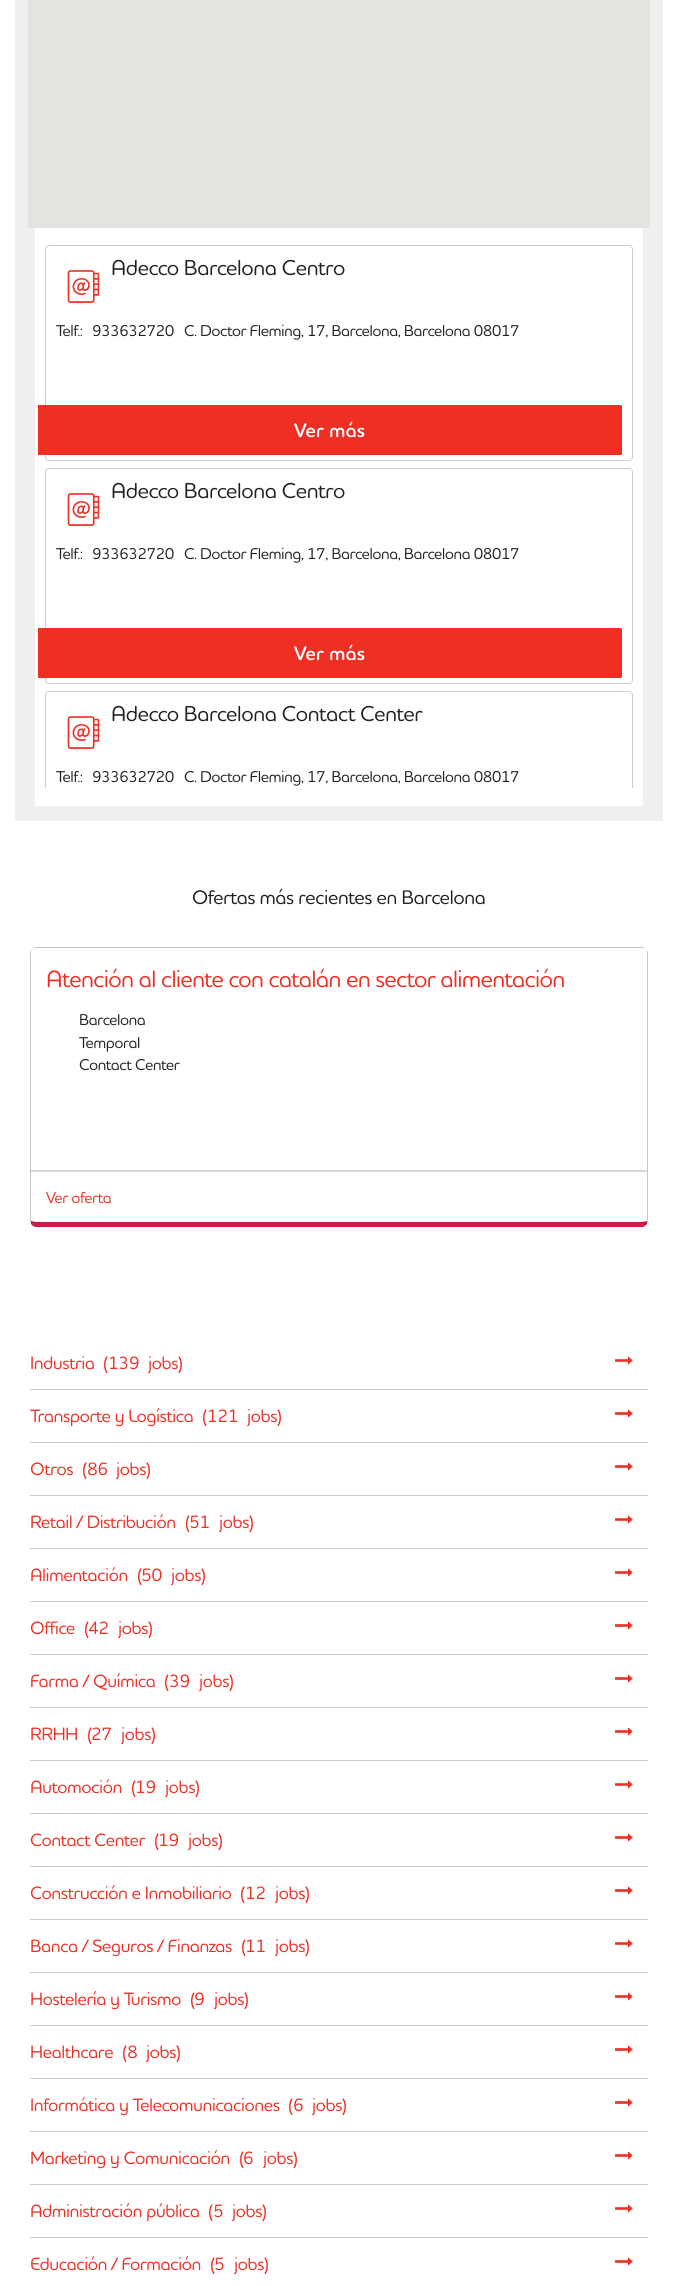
<svg xmlns="http://www.w3.org/2000/svg" width="678" height="2286" viewBox="0 0 678 2286">
  <defs>
    <clipPath id="clip1"><rect x="38" y="238" width="602" height="550"/></clipPath>
  </defs>
  <rect width="100%" height="100%" fill="#fff"/>
  <rect x="15" y="0" width="648" height="821" fill="#efefef"/>
  <rect x="35" y="228" width="608" height="578" fill="#fff"/>
  <rect x="28" y="0" width="622" height="228" fill="#e5e3df"/>
  <rect x="45.5" y="245.5" width="587" height="215" rx="3.5" fill="none" stroke="#ccc"/>
  <image x="112" y="259" width="233" height="17" href="images/1.png"/>
  <image x="67" y="270" width="33" height="33" href="images/2.png"/>
  <image x="56" y="325" width="26" height="12" href="images/3.png"/>
  <image x="93" y="325" width="81" height="12" href="images/4.png"/>
  <image x="184" y="324" width="335" height="16" href="images/5.png"/>
  <path d="M38 405H620C621 405 622 406 622 407V453C622 454 621 455 620 455H38Z" fill="#ef2e24"/>
  <g clip-path="url(#clip1)">
    <rect x="37" y="406" width="584" height="48" rx="1" fill="none" stroke="#ef2e24" stroke-width="2"/>
  </g>
  <image x="294" y="421" width="71" height="17" href="images/6.png"/>
  <rect x="45.5" y="468.5" width="587" height="215" rx="3.5" fill="none" stroke="#ccc"/>
  <image x="112" y="482" width="233" height="17" href="images/1.png"/>
  <image x="67" y="493" width="33" height="33" href="images/2.png"/>
  <image x="56" y="548" width="26" height="12" href="images/3.png"/>
  <image x="93" y="548" width="81" height="12" href="images/4.png"/>
  <image x="184" y="547" width="335" height="16" href="images/5.png"/>
  <path d="M38 628H620C621 628 622 629 622 630V676C622 677 621 678 620 678H38Z" fill="#ef2e24"/>
  <g clip-path="url(#clip1)">
    <rect x="37" y="629" width="584" height="48" rx="1" fill="none" stroke="#ef2e24" stroke-width="2"/>
  </g>
  <image x="294" y="644" width="71" height="17" href="images/6.png"/>
  <g clip-path="url(#clip1)">
    <rect x="45.5" y="691.5" width="587" height="215" rx="3.5" fill="none" stroke="#ccc"/>
  </g>
  <image x="112" y="705" width="311" height="17" href="images/7.png"/>
  <image x="67" y="716" width="33" height="33" href="images/2.png"/>
  <image x="56" y="771" width="26" height="12" href="images/3.png"/>
  <image x="93" y="771" width="81" height="12" href="images/4.png"/>
  <image x="184" y="770" width="335" height="16" href="images/5.png"/>
  <image x="192" y="888" width="293" height="17" href="images/8.png"/>
  <path d="M36 947C34 947 33 948 32 949C33 948 34 948 36 948H642C644 948 645 948 646 949C645 948 644 947 642 947Z" fill="#c8c7c7"/>
  <path d="M648 1221V952L646 949C647 950 647 952 647 953V1221V1224Z" fill="#c8c7c7"/>
  <path d="M36 1227H642C644 1227 646 1225 647 1224V1221L642 1222H36L31 1221V1224C32 1225 34 1227 36 1227Z" fill="#d11947"/>
  <path d="M30 953V1221L31 1224V1221V953C31 952 31 950 32 949C31 950 30 952 30 953Z" fill="#c8c7c7"/>
  <rect x="31" y="1170" width="616" height="1" fill="#dad9d9"/>
  <image x="47" y="968" width="517" height="20" href="images/9.png"/>
  <image x="80" y="1014" width="65" height="12" href="images/10.png"/>
  <image x="79" y="1037" width="61" height="15" href="images/11.png"/>
  <image x="79" y="1059" width="101" height="12" href="images/12.png"/>
  <rect x="31" y="1171" width="616" height="1" fill="#d7d7d7"/>
  <image x="46" y="1192" width="65" height="12" href="images/13.png"/>
  <rect x="30" y="1389" width="618" height="1" fill="#ccc"/>
  <image x="31" y="1356" width="63" height="14" href="images/14.png"/>
  <image x="104" y="1356" width="4" height="18" href="images/15.png"/>
  <image x="110" y="1356" width="29" height="14" href="images/16.png"/>
  <image x="148" y="1356" width="34" height="18" href="images/17.png"/>
  <image x="615" y="1356" width="18" height="9" href="images/18.png"/>
  <rect x="30" y="1442" width="618" height="1" fill="#ccc"/>
  <image x="30" y="1408" width="163" height="19" href="images/19.png"/>
  <image x="203" y="1409" width="4" height="18" href="images/15.png"/>
  <image x="209" y="1409" width="29" height="13" href="images/20.png"/>
  <image x="247" y="1409" width="34" height="18" href="images/17.png"/>
  <image x="615" y="1409" width="18" height="9" href="images/18.png"/>
  <rect x="30" y="1495" width="618" height="1" fill="#ccc"/>
  <image x="30" y="1462" width="43" height="14" href="images/21.png"/>
  <image x="83" y="1462" width="4" height="18" href="images/15.png"/>
  <image x="88" y="1462" width="19" height="14" href="images/22.png"/>
  <image x="116" y="1462" width="34" height="18" href="images/17.png"/>
  <image x="615" y="1462" width="18" height="9" href="images/18.png"/>
  <rect x="30" y="1548" width="618" height="1" fill="#ccc"/>
  <image x="31" y="1514" width="144" height="15" href="images/23.png"/>
  <image x="185" y="1515" width="5" height="18" href="images/24.png"/>
  <image x="190" y="1515" width="19" height="14" href="images/25.png"/>
  <image x="219" y="1515" width="34" height="18" href="images/17.png"/>
  <image x="615" y="1515" width="18" height="9" href="images/18.png"/>
  <rect x="30" y="1601" width="618" height="1" fill="#ccc"/>
  <image x="31" y="1567" width="97" height="15" href="images/26.png"/>
  <image x="138" y="1568" width="4" height="18" href="images/15.png"/>
  <image x="142" y="1568" width="20" height="14" href="images/27.png"/>
  <image x="171" y="1568" width="34" height="18" href="images/17.png"/>
  <image x="615" y="1568" width="18" height="9" href="images/18.png"/>
  <rect x="30" y="1654" width="618" height="1" fill="#ccc"/>
  <image x="30" y="1621" width="45" height="14" href="images/28.png"/>
  <image x="85" y="1621" width="4" height="18" href="images/15.png"/>
  <image x="88" y="1621" width="20" height="14" href="images/29.png"/>
  <image x="118" y="1621" width="34" height="18" href="images/17.png"/>
  <image x="615" y="1621" width="18" height="9" href="images/18.png"/>
  <rect x="30" y="1707" width="618" height="1" fill="#ccc"/>
  <image x="31" y="1673" width="124" height="17" href="images/30.png"/>
  <image x="165" y="1674" width="4" height="18" href="images/15.png"/>
  <image x="170" y="1674" width="20" height="14" href="images/31.png"/>
  <image x="199" y="1674" width="34" height="18" href="images/17.png"/>
  <image x="615" y="1674" width="18" height="9" href="images/18.png"/>
  <rect x="30" y="1760" width="618" height="1" fill="#ccc"/>
  <image x="31" y="1727" width="46" height="14" href="images/32.png"/>
  <image x="88" y="1727" width="4" height="18" href="images/15.png"/>
  <image x="92" y="1727" width="19" height="14" href="images/33.png"/>
  <image x="121" y="1727" width="34" height="18" href="images/17.png"/>
  <image x="615" y="1727" width="18" height="9" href="images/18.png"/>
  <rect x="30" y="1813" width="618" height="1" fill="#ccc"/>
  <image x="31" y="1779" width="91" height="15" href="images/34.png"/>
  <image x="132" y="1780" width="4" height="18" href="images/15.png"/>
  <image x="137" y="1780" width="19" height="14" href="images/35.png"/>
  <image x="165" y="1780" width="34" height="18" href="images/17.png"/>
  <image x="615" y="1780" width="18" height="9" href="images/18.png"/>
  <rect x="30" y="1866" width="618" height="1" fill="#ccc"/>
  <image x="30" y="1833" width="116" height="14" href="images/36.png"/>
  <image x="155" y="1833" width="4" height="18" href="images/15.png"/>
  <image x="160" y="1833" width="19" height="14" href="images/35.png"/>
  <image x="188" y="1833" width="34" height="18" href="images/17.png"/>
  <image x="615" y="1833" width="18" height="9" href="images/18.png"/>
  <rect x="30" y="1919" width="618" height="1" fill="#ccc"/>
  <image x="30" y="1885" width="202" height="15" href="images/37.png"/>
  <image x="241" y="1886" width="4" height="18" href="images/15.png"/>
  <image x="247" y="1886" width="18" height="13" href="images/38.png"/>
  <image x="275" y="1886" width="34" height="18" href="images/17.png"/>
  <image x="615" y="1886" width="18" height="9" href="images/18.png"/>
  <rect x="30" y="1972" width="618" height="1" fill="#ccc"/>
  <image x="31" y="1939" width="201" height="18" href="images/39.png"/>
  <image x="242" y="1939" width="4" height="18" href="images/15.png"/>
  <image x="247" y="1939" width="18" height="13" href="images/40.png"/>
  <image x="275" y="1939" width="34" height="18" href="images/17.png"/>
  <image x="615" y="1939" width="18" height="9" href="images/18.png"/>
  <rect x="30" y="2025" width="618" height="1" fill="#ccc"/>
  <image x="31" y="1991" width="150" height="19" href="images/41.png"/>
  <image x="191" y="1992" width="4" height="18" href="images/15.png"/>
  <image x="195" y="1992" width="9" height="14" href="images/42.png"/>
  <image x="214" y="1992" width="34" height="18" href="images/17.png"/>
  <image x="615" y="1992" width="18" height="9" href="images/18.png"/>
  <rect x="30" y="2078" width="618" height="1" fill="#ccc"/>
  <image x="31" y="2045" width="82" height="14" href="images/43.png"/>
  <image x="123" y="2045" width="4" height="18" href="images/15.png"/>
  <image x="128" y="2045" width="9" height="14" href="images/44.png"/>
  <image x="146" y="2045" width="34" height="18" href="images/17.png"/>
  <image x="615" y="2045" width="18" height="9" href="images/18.png"/>
  <rect x="30" y="2131" width="618" height="1" fill="#ccc"/>
  <image x="31" y="2097" width="249" height="19" href="images/45.png"/>
  <image x="289" y="2098" width="4" height="18" href="images/15.png"/>
  <image x="294" y="2098" width="9" height="14" href="images/46.png"/>
  <image x="312" y="2098" width="34" height="18" href="images/17.png"/>
  <image x="615" y="2098" width="18" height="9" href="images/18.png"/>
  <rect x="30" y="2184" width="618" height="1" fill="#ccc"/>
  <image x="31" y="2150" width="199" height="19" href="images/47.png"/>
  <image x="240" y="2151" width="4" height="18" href="images/15.png"/>
  <image x="244" y="2151" width="9" height="14" href="images/46.png"/>
  <image x="263" y="2151" width="34" height="18" href="images/17.png"/>
  <image x="615" y="2151" width="18" height="9" href="images/18.png"/>
  <rect x="30" y="2237" width="618" height="1" fill="#ccc"/>
  <image x="31" y="2203" width="168" height="19" href="images/48.png"/>
  <image x="209" y="2204" width="4" height="18" href="images/15.png"/>
  <image x="214" y="2204" width="9" height="14" href="images/49.png"/>
  <image x="232" y="2204" width="34" height="18" href="images/17.png"/>
  <image x="615" y="2204" width="18" height="9" href="images/18.png"/>
  <image x="31" y="2256" width="170" height="15" href="images/50.png"/>
  <image x="211" y="2257" width="4" height="18" href="images/15.png"/>
  <image x="215" y="2257" width="9" height="14" href="images/49.png"/>
  <image x="234" y="2257" width="34" height="18" href="images/17.png"/>
  <image x="615" y="2257" width="18" height="9" href="images/18.png"/>
</svg>
